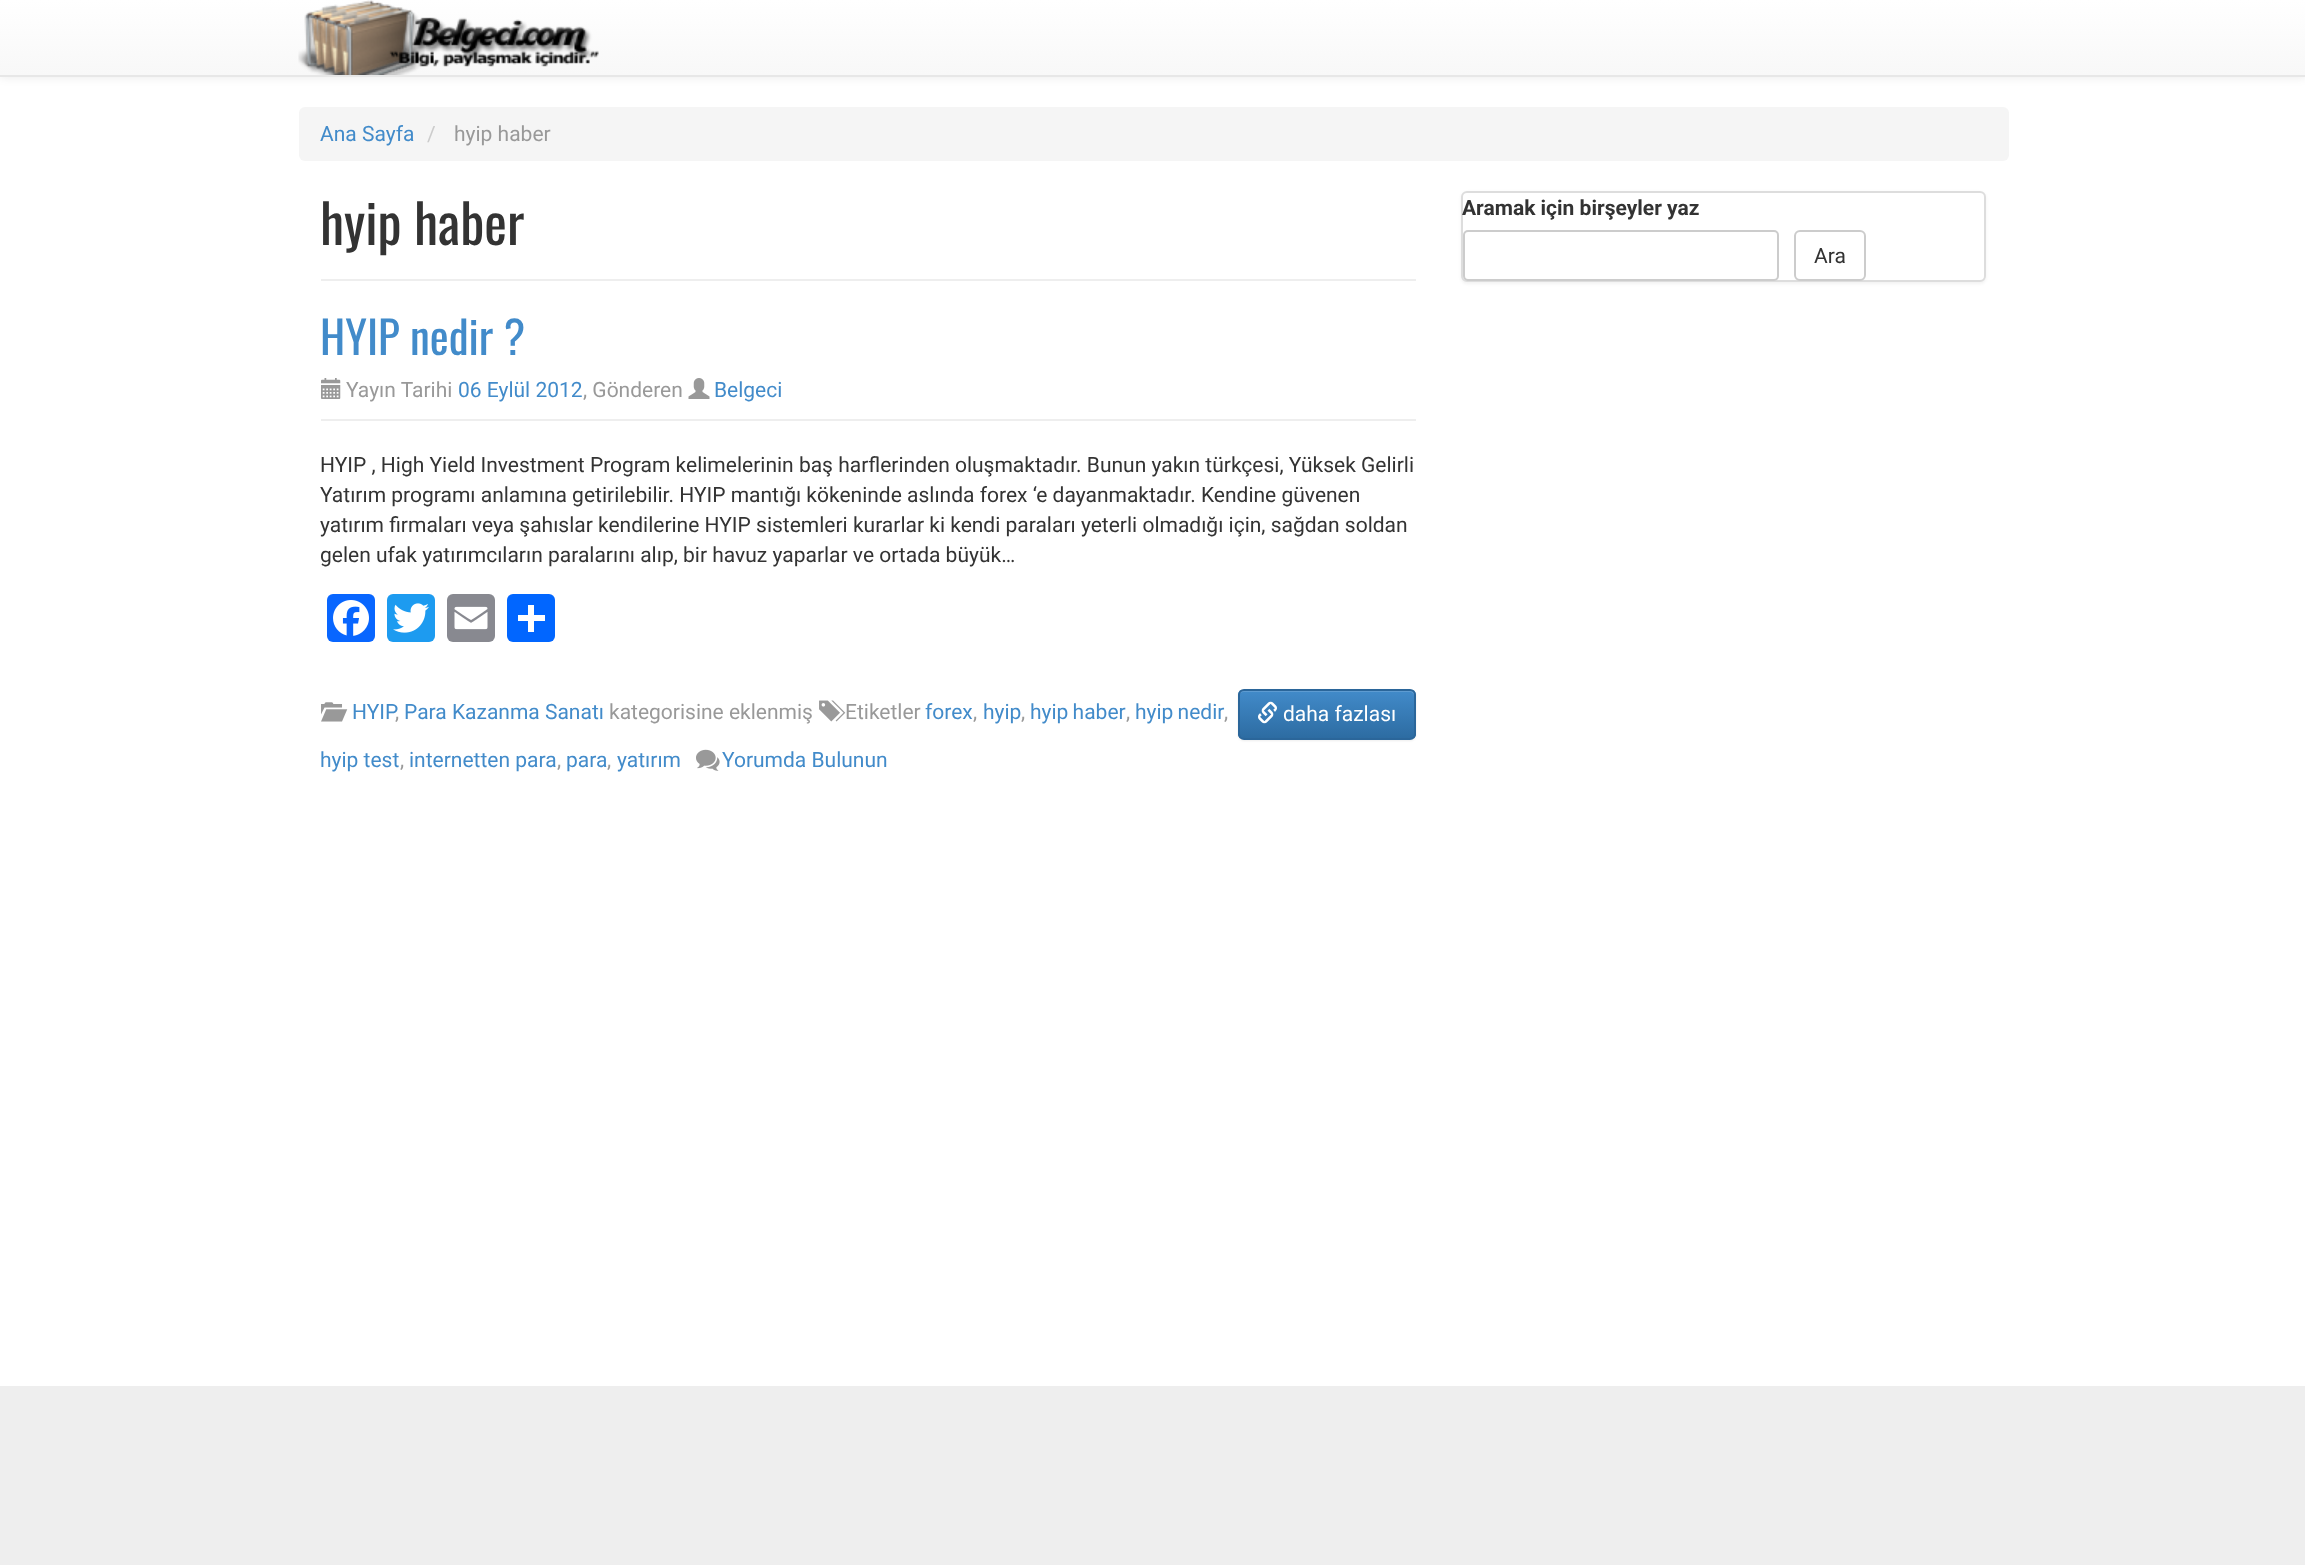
<svg xmlns="http://www.w3.org/2000/svg" width="2305" height="1565" viewBox="0 0 2305 1565">
  <style>
    .t1 { font: 21px Roboto; fill: #428bca; }
    .t2 { font: 21px Roboto; fill: #ccc; }
    .t3 { font: 21px Roboto; fill: #999; }
    .t4 { font: 54px Oswald; fill: #333; }
    .t5 { font: 45px Oswald; fill: #428bca; }
    .t6 { font: 21px Roboto; fill: #333; }
    .t7 { font: 21px Roboto; fill: #fff; }
    .t8 { font: bold 21px Roboto; fill: #333; }
  </style>
  <defs>
    <linearGradient id="g1" gradientUnits="userSpaceOnUse" x1="1153" y1="0" x2="1153" y2="75"><stop offset="0" stop-color="#fff"/><stop offset="1" stop-color="#f8f8f8"/></linearGradient>
    <clipPath id="clip1"><rect x="1238" y="689" width="178" height="51" rx="6"/></clipPath>
    <linearGradient id="g2" gradientUnits="userSpaceOnUse" x1="1327" y1="690" x2="1327" y2="738"><stop offset="0" stop-color="#428bca"/><stop offset="1" stop-color="#2d6ca2"/></linearGradient>
  </defs>
  <rect width="100%" height="100%" fill="#fff"/>
  <rect x="0" y="2" width="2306" height="76" fill="#00000012" filter="blur(4px)"/>
  <rect x="0" y="0" width="2305" height="75" fill="url(#g1)"/>
  <rect x="0" y="75" width="2305" height="2" fill="#e7e7e7"/>
  <image x="298" y="0" width="301" height="75" href="images/1.png"/>
  <rect x="299" y="107" width="1710" height="54" rx="6" fill="#f5f5f5"/>
  <text x="320" y="141" class="t1">Ana Sayfa</text>
  <text x="427" y="141" class="t2">/</text>
  <text x="454" y="141" class="t3">hyip haber</text>
  <rect x="321" y="279" width="1095" height="2" fill="#eee"/>
  <text x="320" y="245" class="t4">hyip haber</text>
  <rect x="321" y="419" width="1095" height="2" fill="#eee"/>
  <text x="320" y="355" class="t5">HYIP nedir ?</text>
  <image x="321" y="378" width="20" height="21" href="images/2.png"/>
  <text x="346" y="397" class="t3">Yayın Tarihi</text>
  <text x="458" y="397" class="t1">06 Eylül 2012</text>
  <text x="583" y="397" class="t3">, Gönderen</text>
  <image x="688" y="378" width="22" height="21" href="images/3.png"/>
  <text x="714" y="397" class="t1">Belgeci</text>
  <text x="320" y="472" class="t6">HYIP , High Yield Investment Program kelimelerinin baş harflerinden oluşmaktadır. Bunun yakın türkçesi, Yüksek Gelirli</text>
  <text x="320" y="502" class="t6">Yatırım programı anlamına getirilebilir. HYIP mantığı kökeninde aslında forex ‘e dayanmaktadır. Kendine güvenen</text>
  <text x="320" y="532" class="t6">yatırım firmaları veya şahıslar kendilerine HYIP sistemleri kurarlar ki kendi paraları yeterli olmadığı için, sağdan soldan</text>
  <text x="320" y="562" class="t6">gelen ufak yatırımcıların paralarını alıp, bir havuz yaparlar ve ortada büyük…</text>
  <rect x="327" y="594" width="48" height="48" rx="6" fill="#0866ff"/>
  <image x="333" y="600" width="36" height="36" href="images/4.png"/>
  <rect x="387" y="594" width="48" height="48" rx="6" fill="#1d9bf0"/>
  <image x="393" y="603" width="36" height="30" href="images/5.png"/>
  <rect x="447" y="594" width="48" height="48" rx="6" fill="#888990"/>
  <image x="454" y="606" width="34" height="24" href="images/6.png"/>
  <rect x="507" y="594" width="48" height="48" rx="6" fill="#0166ff"/>
  <rect x="528" y="605" width="6" height="27" fill="#fff"/>
  <rect x="518" y="615" width="27" height="6" fill="#fff"/>
  <image x="819" y="700" width="27" height="22" href="images/7.png"/>
  <text x="845" y="719" class="t3">Etiketler</text>
  <text x="925" y="719" class="t1">forex</text>
  <text x="973" y="719" class="t3">,</text>
  <text x="983" y="719" class="t1">hyip</text>
  <text x="1021" y="719" class="t3">,</text>
  <text x="1030" y="719" word-spacing="-1" class="t1">hyip haber</text>
  <text x="1126" y="719" class="t3">,</text>
  <text x="1135" y="719" word-spacing="-1" class="t1">hyip nedir</text>
  <text x="1224" y="719" class="t3">,</text>
  <text x="320" y="767" class="t1">hyip test</text>
  <text x="400" y="767" class="t3">,</text>
  <text x="409" y="767" class="t1">internetten para</text>
  <text x="557" y="767" class="t3">,</text>
  <text x="566" y="767" class="t1">para</text>
  <text x="607" y="767" class="t3">,</text>
  <text x="617" y="767" class="t1">yatırım</text>
  <image x="321" y="702" width="27" height="20" href="images/8.png"/>
  <text x="352" y="719" class="t1">HYIP</text>
  <text x="404" y="719" class="t1">Para Kazanma Sanatı</text>
  <text x="609" y="719" class="t3">kategorisine eklenmiş</text>
  <text x="395" y="719" class="t3">,</text>
  <image x="696" y="749" width="24" height="22" href="images/9.png"/>
  <text x="722" y="767" class="t1">Yorumda Bulunun</text>
  <rect x="1238" y="690" width="178" height="51" rx="6" fill="#00000012" filter="blur(1px)"/>
  <g clip-path="url(#clip1)">
    <rect x="1238" y="690" width="178" height="48" fill="url(#g2)"/>
  </g>
  <path d="M1244 692H1410C1412 692 1414 694 1414 696V736C1415 735 1415 734 1415 733V695C1415 692 1413 690 1410 690H1244C1241 690 1239 692 1239 695V696C1239 694 1241 692 1244 692Z" fill="#ffffff26"/>
  <rect x="1239" y="690" width="176" height="49" rx="5" fill="none" stroke="#2b669a" stroke-width="2"/>
  <image x="1258" y="701" width="19" height="23" href="images/10.png"/>
  <text x="1283" y="721" class="t7">daha fazlası</text>
  <rect x="1461" y="192" width="525" height="92" rx="6" fill="#0000000d" filter="blur(1.5px)"/>
  <rect x="1462" y="192" width="523" height="89" rx="5" fill="#fff" stroke="#ddd" stroke-width="2"/>
  <text x="1462" y="215" class="t8">Aramak için birşeyler yaz</text>
  <rect x="1464" y="231" width="314" height="49" rx="4" fill="#fff" stroke="#ccc" stroke-width="2"/>
  <rect x="1795" y="231" width="70" height="49" rx="5" fill="#fff" stroke="#ccc" stroke-width="2"/>
  <text x="1814" y="263" class="t6">Ara</text>
  <rect x="0" y="1386" width="2305" height="179" fill="#eee"/>
</svg>
